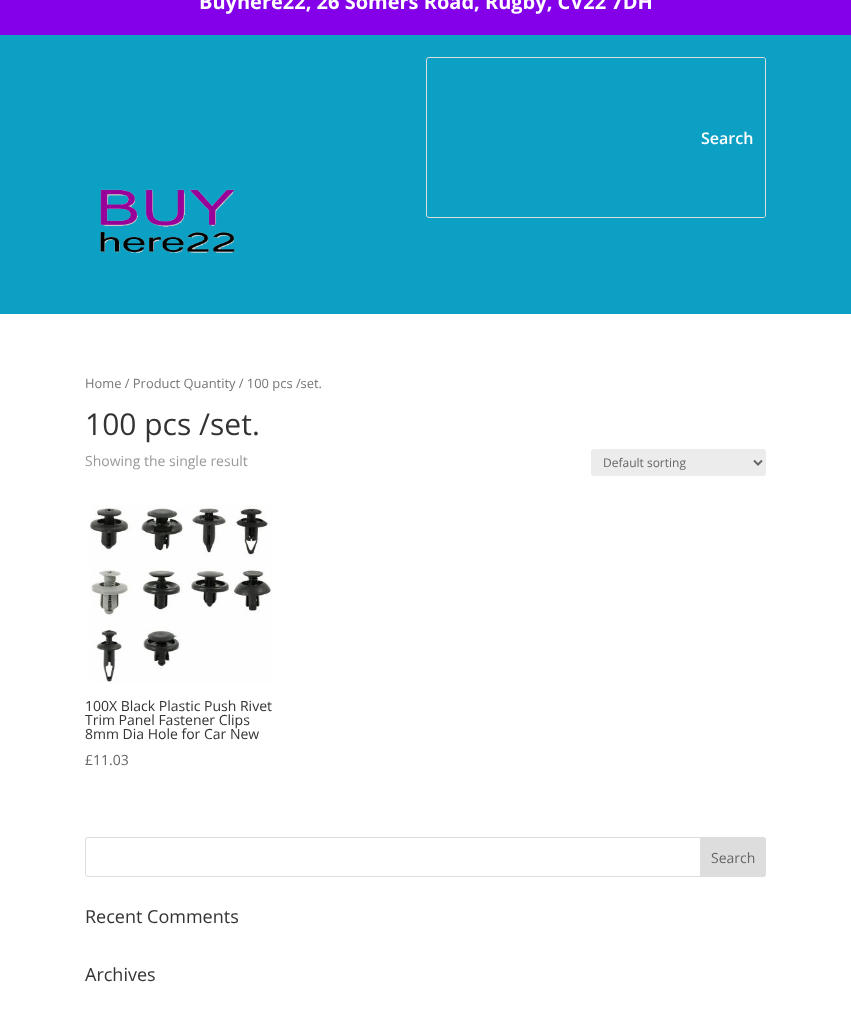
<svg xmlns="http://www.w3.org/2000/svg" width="851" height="1032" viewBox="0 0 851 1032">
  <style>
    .t1 { font: bold 20px Open Sans; fill: #fff; }
    .t2 { font: 600 16px Open Sans; fill: #fff; }
    .t3 { font: 12.9px Open Sans; fill: #767676; }
    .t4 { font: 30px Open Sans; fill: #333; }
    .t5 { font: 14px Open Sans; fill: #999; }
    .t6 { font: 12px Open Sans; fill: #666; }
    .t7 { font: 14px Open Sans; fill: #333; }
    .t8 { font: 14px Open Sans; fill: #666; }
    .t9 { font: 18px Open Sans; fill: #333; }
  </style>
  <rect width="100%" height="100%" fill="#fff"/>
  <rect x="0" y="0" width="851" height="35" fill="#8300e9"/>
  <text x="199" y="9" class="t1">Buyhere22, 26 Somers Road, Rugby, CV22 7DH</text>
  <rect x="0" y="35" width="851" height="279" fill="#0da0c5"/>
  <rect x="426.5" y="57.5" width="339" height="160" rx="2.5" fill="none" stroke="#ddd"/>
  <path d="M690 58H763C764 58 765 59 765 60V215C765 216 764 217 763 217H690Z" fill="#0da0c5"/>
  <text x="701" y="144" class="t2">Search</text>
  <image x="100" y="189" width="135" height="64" href="images/1.png"/>
  <text x="85" y="388" class="t3">Home / Product Quantity / 100 pcs /set.</text>
  <text x="85" y="435" class="t4">100 pcs /set.</text>
  <text x="85" y="466" class="t5">Showing the single result</text>
  <rect x="591" y="449" width="175" height="27" rx="3" fill="#ececec"/>
  <path d="M754 460.5L758 464.5L762 460.5" fill="none" stroke="#666" stroke-width="2"/>
  <text x="603" y="467" class="t6">Default sorting</text>
  <image x="90" y="505" width="182" height="178" href="images/2.png"/>
  <text x="85" y="711" class="t7">100X Black Plastic Push Rivet</text>
  <text x="85" y="725" class="t7">Trim Panel Fastener Clips</text>
  <text x="85" y="739" class="t7">8mm Dia Hole for Car New</text>
  <text x="85" y="765" class="t8">£11.03</text>
  <rect x="85.5" y="837.5" width="680" height="39" rx="2.5" fill="none" stroke="#ddd"/>
  <path d="M700.5 837.5H763C764.5 837.5 765.5 838.5 765.5 840V874C765.5 875.5 764.5 876.5 763 876.5H700.5Z" fill="#ddd" stroke="#ddd"/>
  <text x="711" y="863" class="t8">Search</text>
  <text x="85" y="923" class="t9">Recent Comments</text>
  <text x="85" y="981" class="t9">Archives</text>
</svg>
